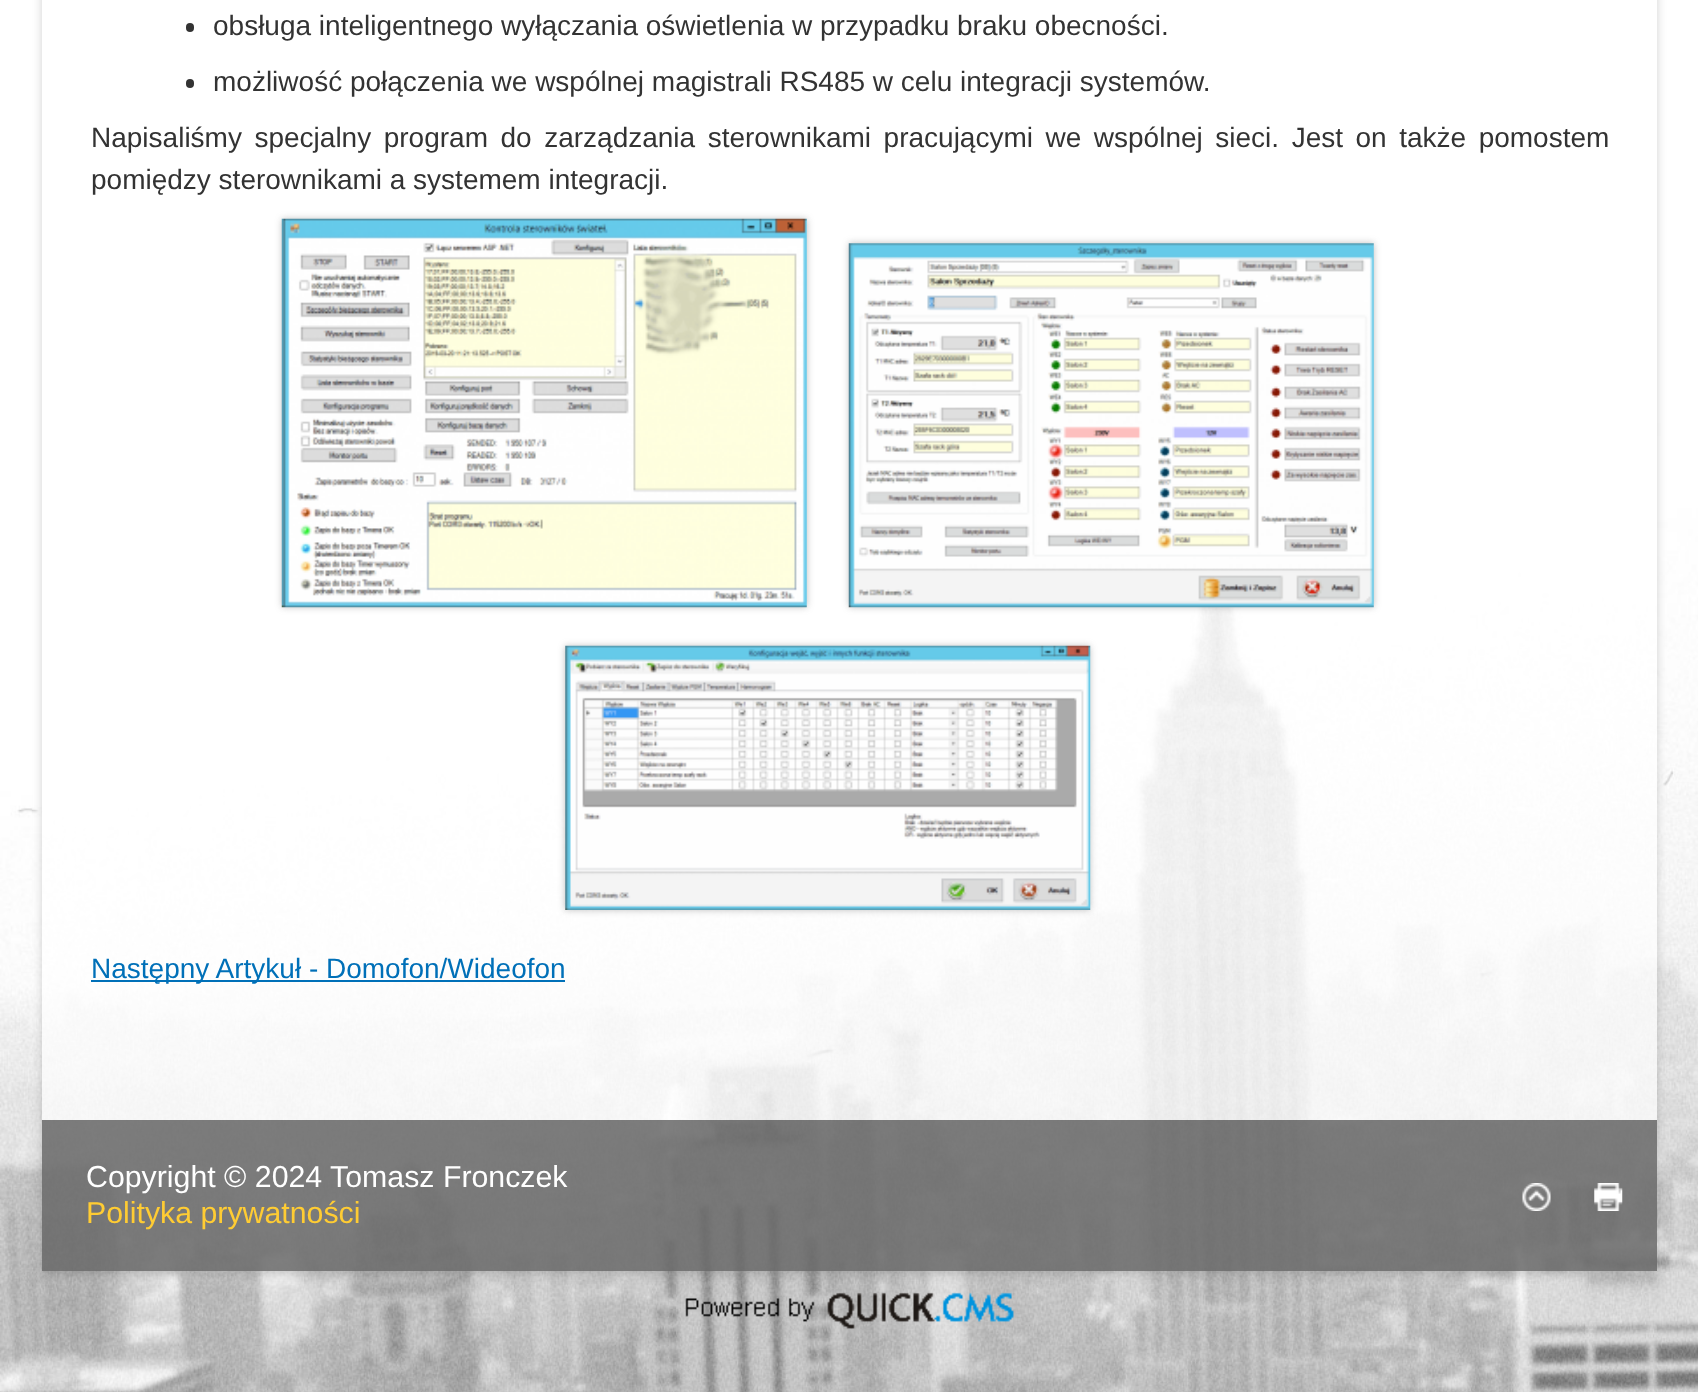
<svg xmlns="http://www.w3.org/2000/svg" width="1698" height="1392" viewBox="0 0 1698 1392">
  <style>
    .t1 { font: 28px Liberation Sans; fill: #333; }
    .t2 { font: 28px Liberation Sans; fill: #0070b8; }
    .t3 { font: 30.3px Liberation Sans; fill: #fff; }
    .t4 { font: 30.3px Liberation Sans; fill: #fc3; }
  </style>
  <defs>
    <clipPath id="clip1"><path d="M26 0H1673V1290H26ZM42-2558H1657V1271H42Z" clip-rule="evenodd"/></clipPath>
  </defs>
  <rect width="100%" height="100%" fill="#fff"/>
  <image x="0" y="396" width="1698" height="996" href="images/1.png"/>
  <g clip-path="url(#clip1)">
    <rect x="42" y="-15" width="1615" height="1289" fill="#6464644d" filter="blur(5px)"/>
  </g>
  <rect x="42" y="396" width="1615" height="875" fill="#ffffffb3"/>
  <rect x="186" y="23" width="8" height="9" rx="4" fill="#333"/>
  <text x="213" y="35" class="t1">obsługa inteligentnego wyłączania oświetlenia w przypadku braku obecności.</text>
  <rect x="186" y="79" width="8" height="9" rx="4" fill="#333"/>
  <text x="213" y="91" class="t1">możliwość połączenia we wspólnej magistrali RS485 w celu integracji systemów.</text>
  <text x="91" y="147" word-spacing="4.75" class="t1">Napisaliśmy specjalny program do zarządzania sterownikami pracującymi we wspólnej sieci. Jest on także pomostem</text>
  <text x="91" y="189" class="t1">pomiędzy sterownikami a systemem integracji.</text>
  <rect x="282" y="219" width="525" height="388" fill="#64646466" filter="blur(3.5px)"/>
  <image x="281" y="218" width="526" height="390" href="images/2.png"/>
  <rect x="849" y="243" width="525" height="364" fill="#64646466" filter="blur(3.5px)"/>
  <image x="848" y="243" width="526" height="365" href="images/3.png"/>
  <rect x="565" y="646" width="525" height="264" fill="#64646466" filter="blur(3.5px)"/>
  <image x="565" y="645" width="526" height="265" href="images/4.png"/>
  <rect x="91" y="980" width="474" height="2" fill="#0070b8"/>
  <text x="91" y="978" class="t2">Następny Artykuł - Domofon/Wideofon</text>
  <rect x="42" y="1120" width="1615" height="151" fill="#00000080"/>
  <text x="86" y="1187" class="t3">Copyright © 2024 Tomasz Fronczek</text>
  <text x="86" y="1223" class="t4">Polityka prywatności</text>
  <image x="1522" y="1183" width="29" height="28" href="images/5.png"/>
  <image x="1594" y="1183" width="29" height="28" href="images/6.png"/>
  <image x="685" y="1292" width="329" height="37" href="images/7.png"/>
</svg>
